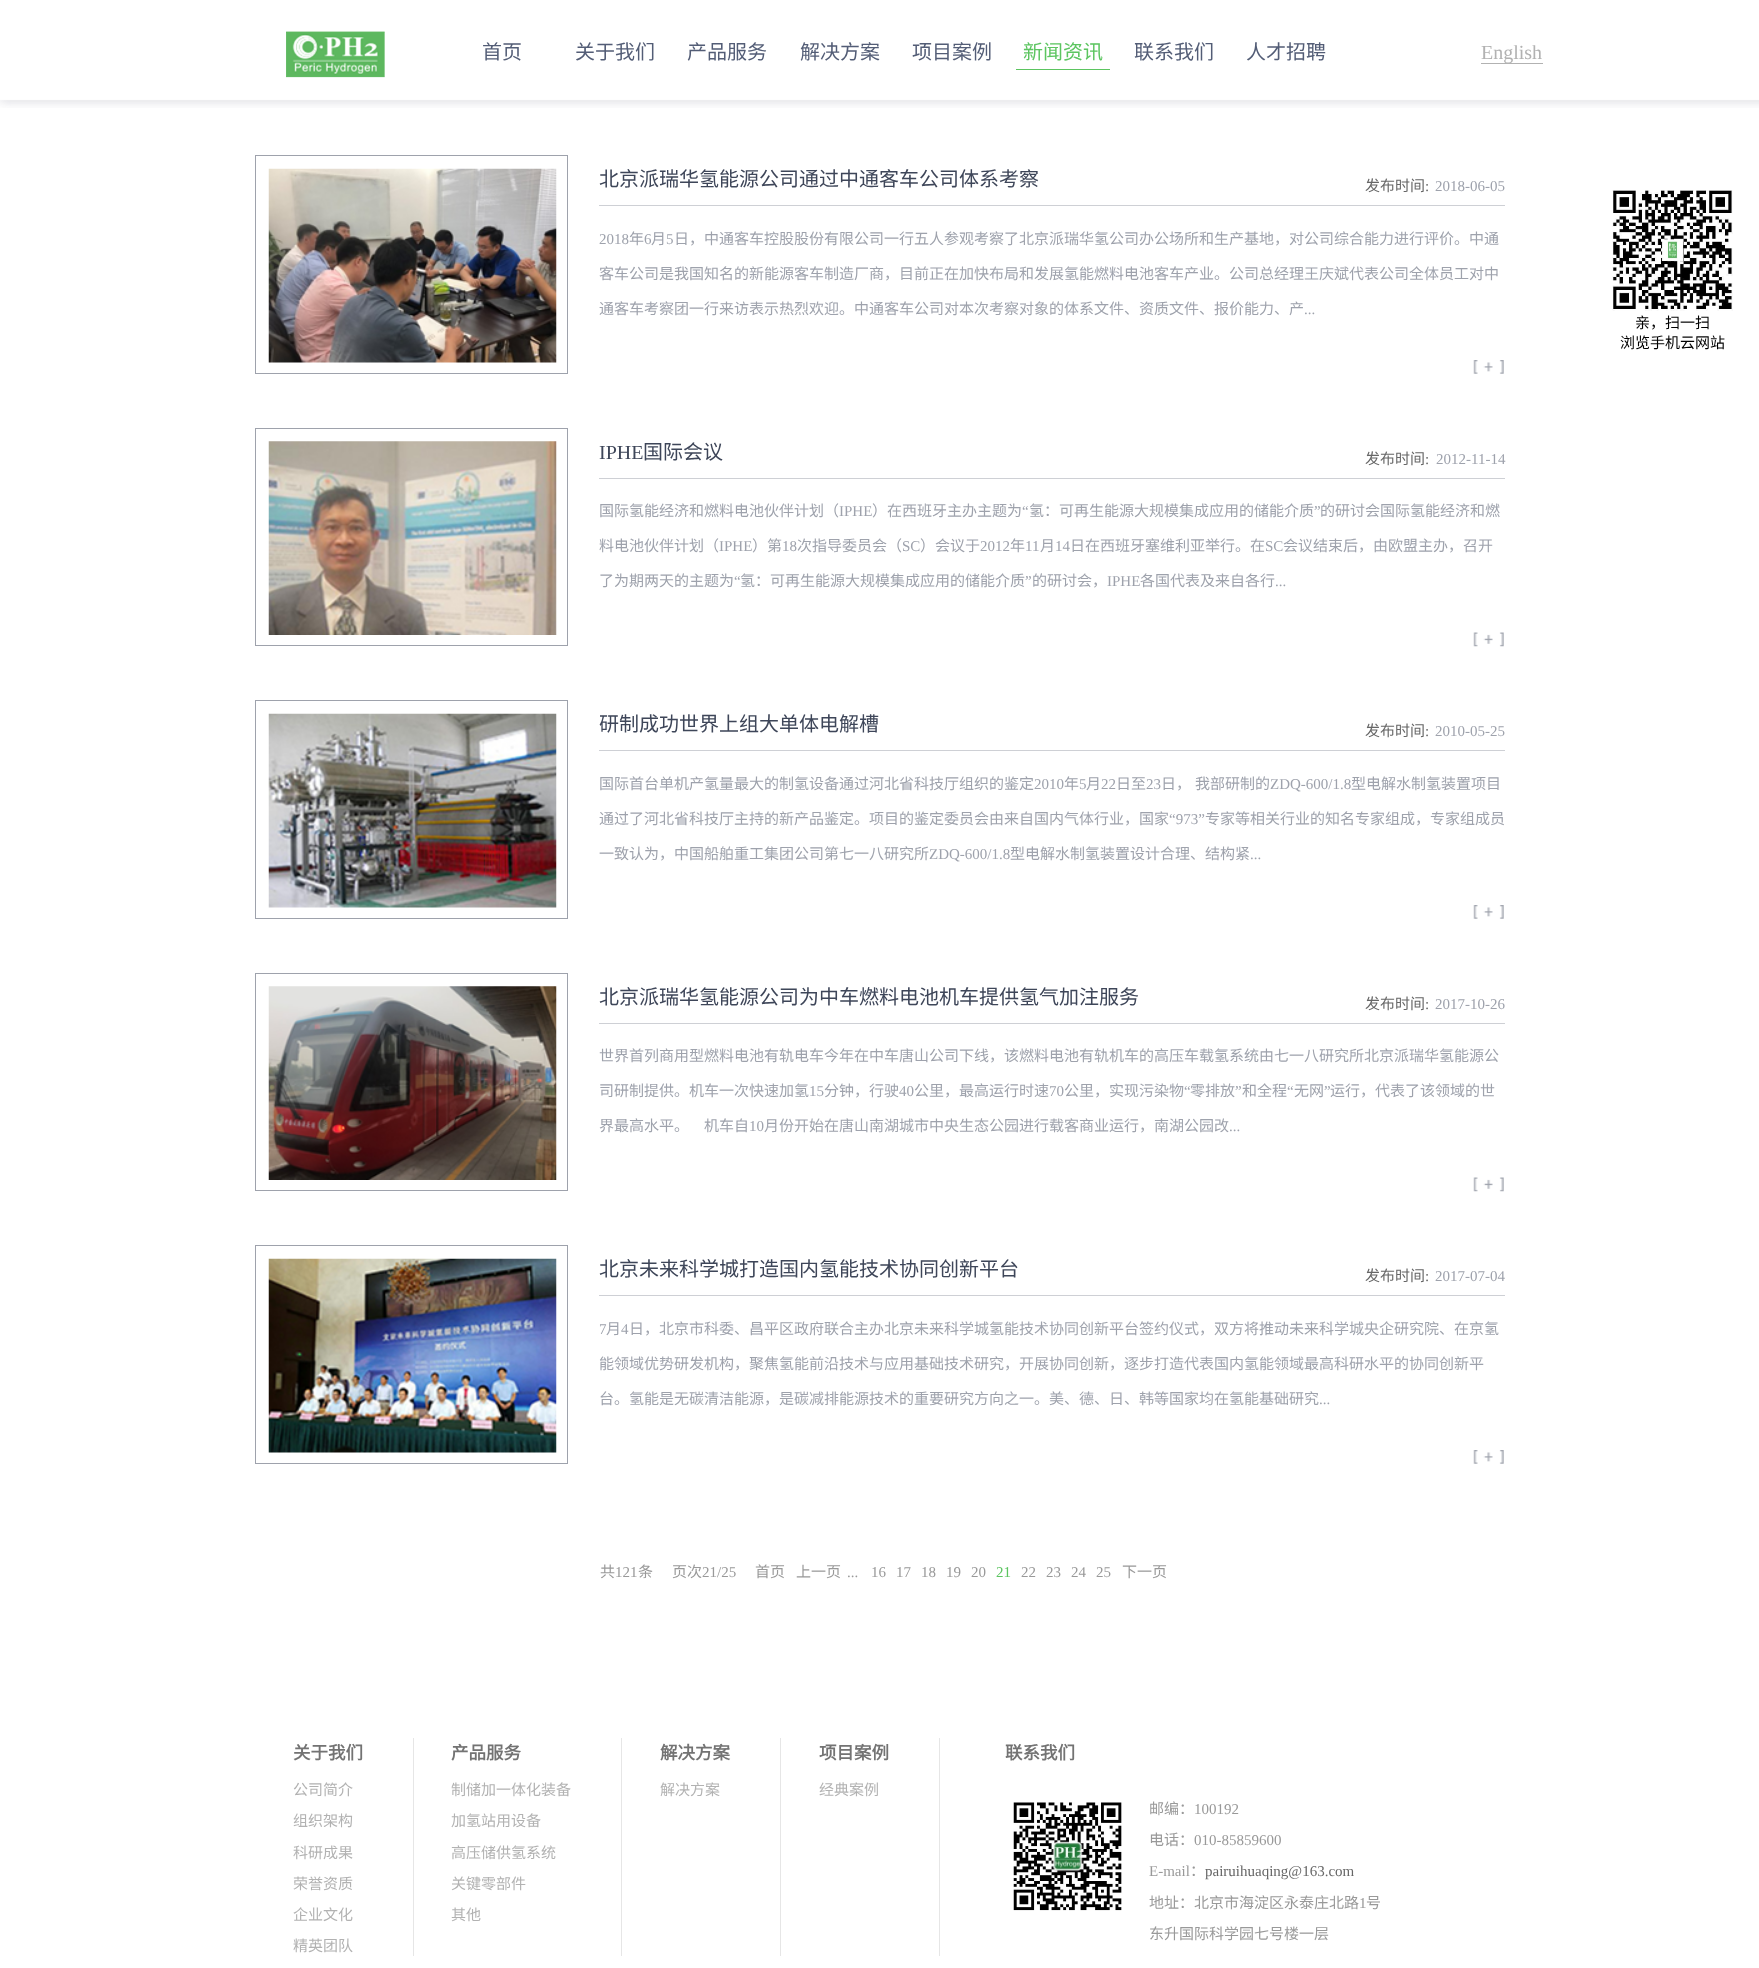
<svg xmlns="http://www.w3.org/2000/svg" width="1759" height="1968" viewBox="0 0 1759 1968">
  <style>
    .t1 { font: 20px Noto Sans CJK SC; fill: #535d76; }
    .t2 { font: 20px Noto Sans CJK SC; fill: #5cc560; }
    .t3 { font: 20px Liberation Serif; fill: #b2b2b2; }
    .t4 { font: 20px Noto Sans CJK SC; fill: #3e4659; }
    .t5 { font: 15px Noto Sans CJK SC; fill: #666; }
    .t6 { font: 15px Liberation Serif; fill: #666; }
    .t7 { font: 15px Liberation Serif; fill: #9ea2ac; }
    .t8 { font: 15px Noto Sans CJK SC; fill: #9ea2ac; }
    .t9 { font: 20px Liberation Serif; fill: #3e4659; }
    .t10 { font: 15px Noto Sans CJK SC; fill: #999; }
    .t11 { font: 15px Liberation Serif; fill: #999; }
    .t12 { font: 15px Liberation Serif; fill: #5cc560; }
    .t13 { font: 15px Noto Sans CJK SC; fill: #000; }
    .t14 { font: bold 17.5px Noto Sans CJK SC; fill: #737373; }
    .t15 { font: 15px Noto Sans CJK SC; fill: #b2b2b2; }
  </style>
  <rect width="100%" height="100%" fill="#fff"/>
  <image x="0" y="0" width="1759" height="108" href="images/1.png"/>
  <text x="482" y="59" class="t1">首页</text>
  <text x="575" y="59" class="t1">关于我们</text>
  <text x="687" y="59" class="t1">产品服务</text>
  <text x="800" y="59" class="t1">解决方案</text>
  <text x="912" y="59" class="t1">项目案例</text>
  <text x="1023" y="59" class="t2">新闻资讯</text>
  <rect x="1016" y="69" width="94" height="1" fill="#5cc560"/>
  <text x="1134" y="59" class="t1">联系我们</text>
  <text x="1246" y="59" class="t1">人才招聘</text>
  <image x="286" y="31" width="99" height="47" href="images/2.png"/>
  <rect x="1481" y="63" width="62" height="1" fill="#b2b2b2"/>
  <text x="1481" y="59" class="t3">English</text>
  <rect x="255.5" y="155.5" width="312" height="218" fill="none" stroke="#9ea2ac"/>
  <image x="268" y="168" width="289" height="195" href="images/3.png"/>
  <rect x="599" y="205" width="906" height="1" fill="#ced0d5"/>
  <text x="599" y="186" class="t4">北京派瑞华氢能源公司通过中通客车公司体系考察</text>
  <text x="1365" y="191" class="t5">发布时间</text>
  <text x="1425" y="191" class="t6">:</text>
  <text x="1435" y="191" class="t7">2018-06-05</text>
  <text x="599" y="244" class="t7">2018</text>
  <text x="629" y="244" class="t8">年</text>
  <text x="644" y="244" class="t7">6</text>
  <text x="651" y="244" class="t8">月</text>
  <text x="666" y="244" class="t7">5</text>
  <text x="674" y="244" class="t8">日，中通客车控股股份有限公司一行五人参观考察了北京派瑞华氢公司办公场所和生产基地，对公司综合能力进行评价。中通</text>
  <text x="599" y="279" class="t8">客车公司是我国知名的新能源客车制造厂商，目前正在加快布局和发展氢能燃料电池客车产业。公司总经理王庆斌代表公司全体员工对中</text>
  <text x="599" y="314" class="t8">通客车考察团一行来访表示热烈欢迎。中通客车公司对本次考察对象的体系文件、资质文件、报价能力、产</text>
  <text x="1304" y="314" class="t7">...</text>
  <image x="1473" y="360" width="31" height="14" href="images/4.png"/>
  <rect x="255.5" y="428.5" width="312" height="217" fill="none" stroke="#9ea2ac"/>
  <image x="268" y="441" width="289" height="194" href="images/5.png"/>
  <rect x="599" y="478" width="906" height="1" fill="#ced0d5"/>
  <text x="599" y="459" class="t9">IPHE</text>
  <text x="643" y="459" class="t4">国际会议</text>
  <text x="1365" y="464" class="t5">发布时间</text>
  <text x="1425" y="464" class="t6">:</text>
  <text x="1436" y="464" class="t7">2012-11-14</text>
  <text x="599" y="516" class="t8">国际氢能经济和燃料电池伙伴计划（</text>
  <text x="839" y="516" class="t7">IPHE</text>
  <text x="872" y="516" class="t8">）在西班牙主办主题为</text>
  <text x="1022" y="516" class="t7">“</text>
  <text x="1029" y="516" class="t8">氢：可再生能源大规模集成应用的储能介质</text>
  <text x="1314" y="516" class="t7">”</text>
  <text x="1320" y="516" class="t8">的研讨会国际氢能经济和燃</text>
  <text x="599" y="551" class="t8">料电池伙伴计划（</text>
  <text x="719" y="551" class="t7">IPHE</text>
  <text x="752" y="551" class="t8">）第</text>
  <text x="782" y="551" class="t7">18</text>
  <text x="797" y="551" class="t8">次指导委员会（</text>
  <text x="902" y="551" class="t7">SC</text>
  <text x="920" y="551" class="t8">）会议于</text>
  <text x="980" y="551" class="t7">2012</text>
  <text x="1010" y="551" class="t8">年</text>
  <text x="1025" y="551" class="t7">11</text>
  <text x="1040" y="551" class="t8">月</text>
  <text x="1055" y="551" class="t7">14</text>
  <text x="1070" y="551" class="t8">日在西班牙塞维利亚举行。在</text>
  <text x="1265" y="551" class="t7">SC</text>
  <text x="1283" y="551" class="t8">会议结束后，由欧盟主办，召开</text>
  <text x="599" y="586" class="t8">了为期两天的主题为</text>
  <text x="734" y="586" class="t7">“</text>
  <text x="740" y="586" class="t8">氢：可再生能源大规模集成应用的储能介质</text>
  <text x="1025" y="586" class="t7">”</text>
  <text x="1032" y="586" class="t8">的研讨会，</text>
  <text x="1107" y="586" class="t7">IPHE</text>
  <text x="1140" y="586" class="t8">各国代表及来自各行</text>
  <text x="1275" y="586" class="t7">...</text>
  <image x="1473" y="632" width="31" height="15" href="images/6.png"/>
  <rect x="255.5" y="700.5" width="312" height="218" fill="none" stroke="#9ea2ac"/>
  <image x="268" y="713" width="289" height="195" href="images/7.png"/>
  <rect x="599" y="750" width="906" height="1" fill="#ced0d5"/>
  <text x="599" y="731" class="t4">研制成功世界上组大单体电解槽</text>
  <text x="1365" y="736" class="t5">发布时间</text>
  <text x="1425" y="736" class="t6">:</text>
  <text x="1435" y="736" class="t7">2010-05-25</text>
  <text x="599" y="789" class="t8">国际首台单机产氢量最大的制氢设备通过河北省科技厅组织的鉴定</text>
  <text x="1034" y="789" class="t7">2010</text>
  <text x="1064" y="789" class="t8">年</text>
  <text x="1079" y="789" class="t7">5</text>
  <text x="1086" y="789" class="t8">月</text>
  <text x="1101" y="789" class="t7">22</text>
  <text x="1116" y="789" class="t8">日至</text>
  <text x="1146" y="789" class="t7">23</text>
  <text x="1161" y="789" class="t8">日，</text>
  <text x="1195" y="789" class="t8">我部研制的</text>
  <text x="1270" y="789" class="t7">ZDQ-600/1.8</text>
  <text x="1351" y="789" class="t8">型电解水制氢装置项目</text>
  <text x="599" y="824" class="t8">通过了河北省科技厅主持的新产品鉴定。项目的鉴定委员会由来自国内气体行业，国家</text>
  <text x="1169" y="824" class="t7">“973”</text>
  <text x="1205" y="824" class="t8">专家等相关行业的知名专家组成，专家组成员</text>
  <text x="599" y="859" class="t8">一致认为，中国船舶重工集团公司第七一八研究所</text>
  <text x="929" y="859" class="t7">ZDQ-600/1.8</text>
  <text x="1010" y="859" class="t8">型电解水制氢装置设计合理、结构紧</text>
  <text x="1250" y="859" class="t7">...</text>
  <image x="1473" y="905" width="31" height="14" href="images/4.png"/>
  <rect x="255.5" y="973.5" width="312" height="217" fill="none" stroke="#9ea2ac"/>
  <image x="268" y="986" width="289" height="194" href="images/8.png"/>
  <rect x="599" y="1023" width="906" height="1" fill="#ced0d5"/>
  <text x="599" y="1004" class="t4">北京派瑞华氢能源公司为中车燃料电池机车提供氢气加注服务</text>
  <text x="1365" y="1009" class="t5">发布时间</text>
  <text x="1425" y="1009" class="t6">:</text>
  <text x="1435" y="1009" class="t7">2017-10-26</text>
  <text x="599" y="1061" class="t8">世界首列商用型燃料电池有轨电车今年在中车唐山公司下线，该燃料电池有轨机车的高压车载氢系统由七一八研究所北京派瑞华氢能源公</text>
  <text x="599" y="1096" class="t8">司研制提供。机车一次快速加氢</text>
  <text x="809" y="1096" class="t7">15</text>
  <text x="824" y="1096" class="t8">分钟，行驶</text>
  <text x="899" y="1096" class="t7">40</text>
  <text x="914" y="1096" class="t8">公里，最高运行时速</text>
  <text x="1049" y="1096" class="t7">70</text>
  <text x="1064" y="1096" class="t8">公里，实现污染物</text>
  <text x="1184" y="1096" class="t7">“</text>
  <text x="1190" y="1096" class="t8">零排放</text>
  <text x="1235" y="1096" class="t7">”</text>
  <text x="1242" y="1096" class="t8">和全程</text>
  <text x="1287" y="1096" class="t7">“</text>
  <text x="1294" y="1096" class="t8">无网</text>
  <text x="1324" y="1096" class="t7">”</text>
  <text x="1330" y="1096" class="t8">运行，代表了该领域的世</text>
  <text x="599" y="1131" class="t8">界最高水平。</text>
  <text x="704" y="1131" class="t8">机车自</text>
  <text x="749" y="1131" class="t7">10</text>
  <text x="764" y="1131" class="t8">月份开始在唐山南湖城市中央生态公园进行载客商业运行，南湖公园改</text>
  <text x="1229" y="1131" class="t7">...</text>
  <image x="1473" y="1177" width="31" height="15" href="images/6.png"/>
  <rect x="255.5" y="1245.5" width="312" height="218" fill="none" stroke="#9ea2ac"/>
  <image x="268" y="1258" width="289" height="195" href="images/9.png"/>
  <rect x="599" y="1295" width="906" height="1" fill="#ced0d5"/>
  <text x="599" y="1276" class="t4">北京未来科学城打造国内氢能技术协同创新平台</text>
  <text x="1365" y="1281" class="t5">发布时间</text>
  <text x="1425" y="1281" class="t6">:</text>
  <text x="1435" y="1281" class="t7">2017-07-04</text>
  <text x="599" y="1334" class="t7">7</text>
  <text x="606" y="1334" class="t8">月</text>
  <text x="621" y="1334" class="t7">4</text>
  <text x="629" y="1334" class="t8">日，北京市科委、昌平区政府联合主办北京未来科学城氢能技术协同创新平台签约仪式，双方将推动未来科学城央企研究院、在京氢</text>
  <text x="599" y="1369" class="t8">能领域优势研发机构，聚焦氢能前沿技术与应用基础技术研究，开展协同创新，逐步打造代表国内氢能领域最高科研水平的协同创新平</text>
  <text x="599" y="1404" class="t8">台。氢能是无碳清洁能源，是碳减排能源技术的重要研究方向之一。美、德、日、韩等国家均在氢能基础研究</text>
  <text x="1319" y="1404" class="t7">...</text>
  <image x="1473" y="1450" width="31" height="14" href="images/4.png"/>
  <text x="600" y="1577" class="t10">共</text>
  <text x="615" y="1577" class="t11">121</text>
  <text x="638" y="1577" class="t10">条</text>
  <text x="672" y="1577" class="t10">页次</text>
  <text x="702" y="1577" class="t11">21/25</text>
  <text x="755" y="1577" class="t10">首页</text>
  <text x="796" y="1577" class="t10">上一页</text>
  <text x="847" y="1577" class="t11">...</text>
  <text x="871" y="1577" class="t11">16</text>
  <text x="896" y="1577" class="t11">17</text>
  <text x="921" y="1577" class="t11">18</text>
  <text x="946" y="1577" class="t11">19</text>
  <text x="971" y="1577" class="t11">20</text>
  <text x="996" y="1577" class="t12">21</text>
  <text x="1021" y="1577" class="t11">22</text>
  <text x="1046" y="1577" class="t11">23</text>
  <text x="1071" y="1577" class="t11">24</text>
  <text x="1096" y="1577" class="t11">25</text>
  <text x="1122" y="1577" class="t10">下一页</text>
  <image x="1612" y="190" width="121" height="121" href="images/10.png"/>
  <text x="1635" y="328" class="t13">亲，扫一扫</text>
  <text x="1620" y="348" class="t13">浏览手机云网站</text>
  <rect x="413" y="1738" width="1" height="218" fill="#e6e6e6"/>
  <text x="293" y="1759" class="t14">关于我们</text>
  <text x="293" y="1795" class="t15">公司简介</text>
  <text x="293" y="1826" class="t15">组织架构</text>
  <text x="293" y="1858" class="t15">科研成果</text>
  <text x="293" y="1889" class="t15">荣誉资质</text>
  <text x="293" y="1920" class="t15">企业文化</text>
  <text x="293" y="1951" class="t15">精英团队</text>
  <rect x="621" y="1738" width="1" height="218" fill="#e6e6e6"/>
  <text x="451" y="1759" class="t14">产品服务</text>
  <text x="451" y="1795" class="t15">制储加一体化装备</text>
  <text x="451" y="1826" class="t15">加氢站用设备</text>
  <text x="451" y="1858" class="t15">高压储供氢系统</text>
  <text x="451" y="1889" class="t15">关键零部件</text>
  <text x="451" y="1920" class="t15">其他</text>
  <rect x="780" y="1738" width="1" height="218" fill="#e6e6e6"/>
  <text x="660" y="1759" class="t14">解决方案</text>
  <text x="660" y="1795" class="t15">解决方案</text>
  <rect x="939" y="1738" width="1" height="218" fill="#e6e6e6"/>
  <text x="819" y="1759" class="t14">项目案例</text>
  <text x="819" y="1795" class="t15">经典案例</text>
  <text x="1005" y="1759" class="t14">联系我们</text>
  <image x="1013" y="1802" width="109" height="109" href="images/11.png"/>
  <text x="1149" y="1814" class="t10">邮编：</text>
  <text x="1194" y="1814" class="t11">100192</text>
  <text x="1149" y="1845" class="t10">电话：</text>
  <text x="1194" y="1845" class="t11">010-85859600</text>
  <text x="1149" y="1876" class="t11">E-mail</text>
  <text x="1190" y="1876" class="t10">：</text>
  <text x="1205" y="1876" class="t6">pairuihuaqing@163.com</text>
  <text x="1149" y="1908" class="t10">地址：北京市海淀区永泰庄北路</text>
  <text x="1359" y="1908" class="t11">1</text>
  <text x="1366" y="1908" class="t10">号</text>
  <text x="1149" y="1939" class="t10">东升国际科学园七号楼一层</text>
</svg>
